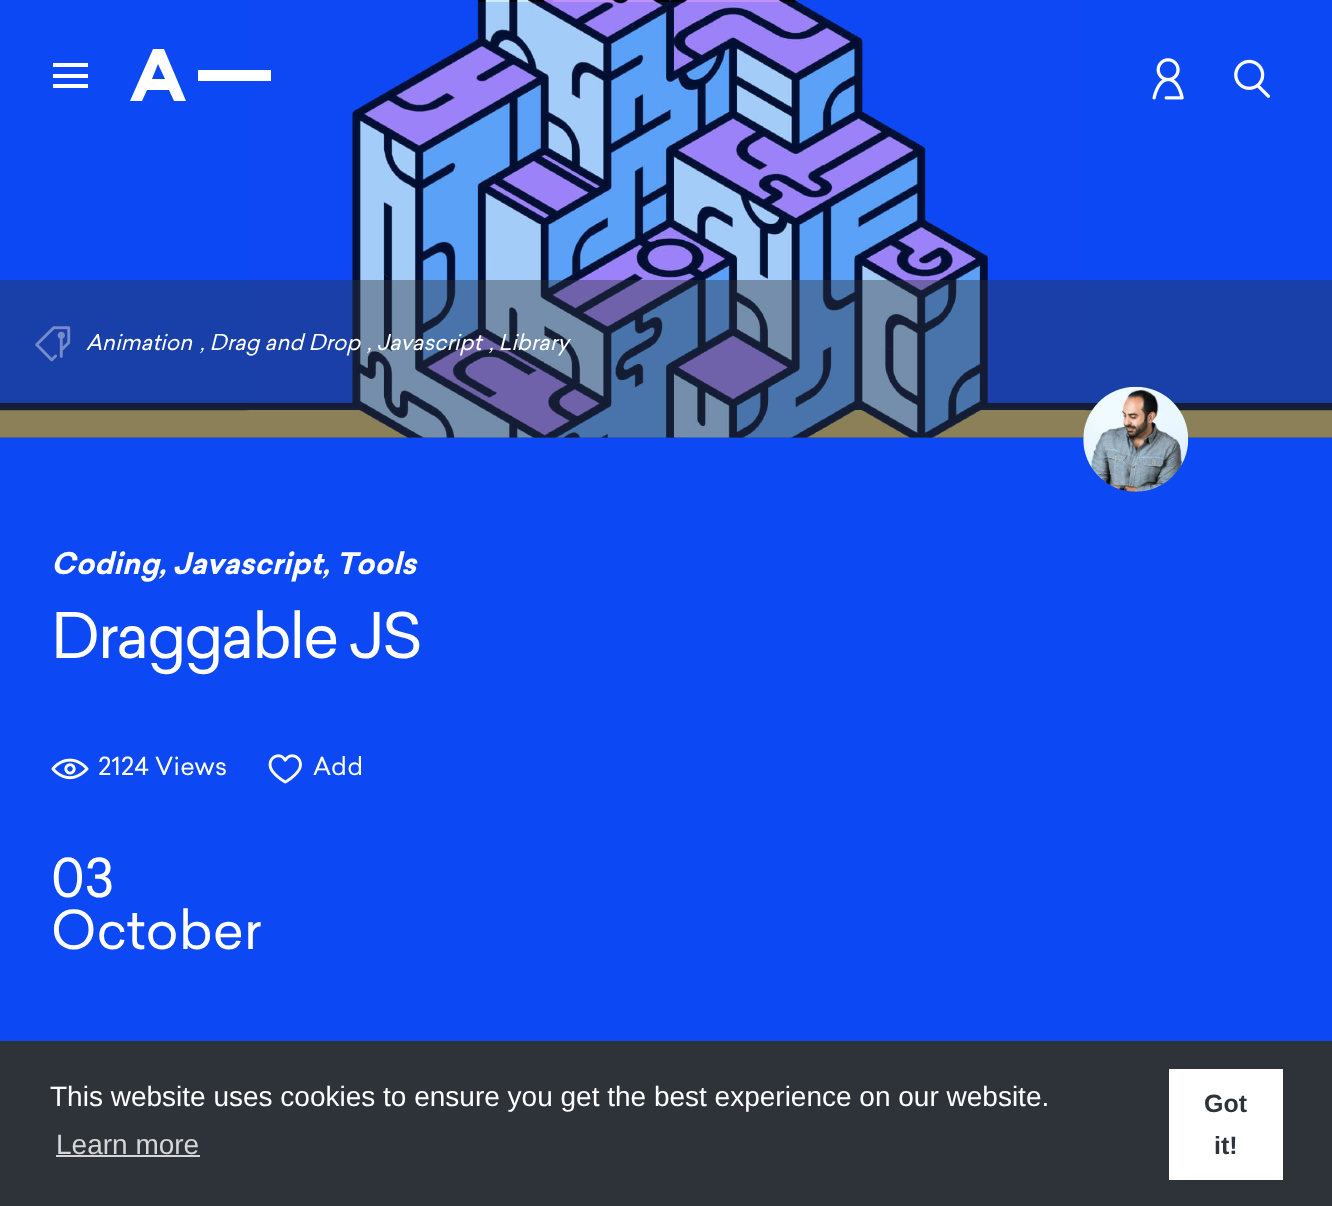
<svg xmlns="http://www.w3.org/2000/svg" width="1332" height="1206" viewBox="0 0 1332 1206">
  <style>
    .t1 { font: italic 21.5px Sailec; fill: #fff; }
    .t2 { font: italic bold 29.25px Sailec; fill: #fff; }
    .t3 { font: 61.5px Sailec; letter-spacing: -2.5px; fill: #fff; }
    .t4 { font: 24.5px Sailec; letter-spacing: 0.25px; fill: #fff; }
    .t5 { font: 52.5px Sailec; fill: #fff; }
    .t6 { font: 28px Liberation Sans; fill: #fff; }
    .t7 { font: 28px Liberation Sans; fill: #d5d6d7; }
    .t8 { font: bold 25px Liberation Sans; fill: #2d3338; }
  </style>
  <rect width="100%" height="100%" fill="#0c48f4"/>
  <image x="0" y="0" width="1332" height="438" href="images/3.png"/>
  <rect x="53" y="63" width="35" height="4" fill="#fff"/>
  <rect x="53" y="74" width="35" height="4" fill="#fff"/>
  <rect x="53" y="84" width="35" height="4" fill="#fff"/>
  <path d="M174 101L169 90H147L142 101H130L153 49H164L186 101ZM158 64L152 79H165Z" fill="#fff"/>
  <rect x="198" y="70" width="73" height="11" fill="#fff"/>
  <image x="1152" y="58" width="32" height="42" href="images/1.png"/>
  <image x="1234" y="59" width="37" height="39" href="images/2.png"/>
  <rect x="0" y="280" width="1332" height="158" fill="#2d333866"/>
  <image x="35" y="326" width="36" height="36" href="images/4.png"/>
  <text x="86" y="350" class="t1">Animation</text>
  <text x="200" y="350" class="t1">, Drag and Drop</text>
  <text x="367" y="350" class="t1">, Javascript</text>
  <text x="489" y="350" class="t1">, Library</text>
  <image x="1083" y="386" width="106" height="106" href="images/5.png"/>
  <text x="51" y="574" class="t2">Coding, Javascript, Tools</text>
  <text x="51" y="658" class="t3">Draggable JS</text>
  <image x="51" y="758" width="38" height="22" href="images/6.png"/>
  <text x="98" y="775" class="t4">2124 Views</text>
  <image x="268" y="754" width="34" height="30" href="images/7.png"/>
  <text x="313" y="775" class="t4">Add</text>
  <text x="51" y="897" class="t5">03</text>
  <text x="51" y="949" class="t5">October</text>
  <rect x="0" y="1041" width="1332" height="165" fill="#2d3338"/>
  <text x="50" y="1106" class="t6">This website uses cookies to ensure you get the best experience on our website.</text>
  <text x="56" y="1154" class="t7">Learn more</text>
  <rect x="56" y="1155" width="144" height="2" fill="#d5d6d7"/>
  <rect x="1169" y="1069" width="114" height="111" fill="#fff"/>
  <text x="1204" y="1112" class="t8">Got</text>
  <text x="1214" y="1154" class="t8">it!</text>
</svg>
